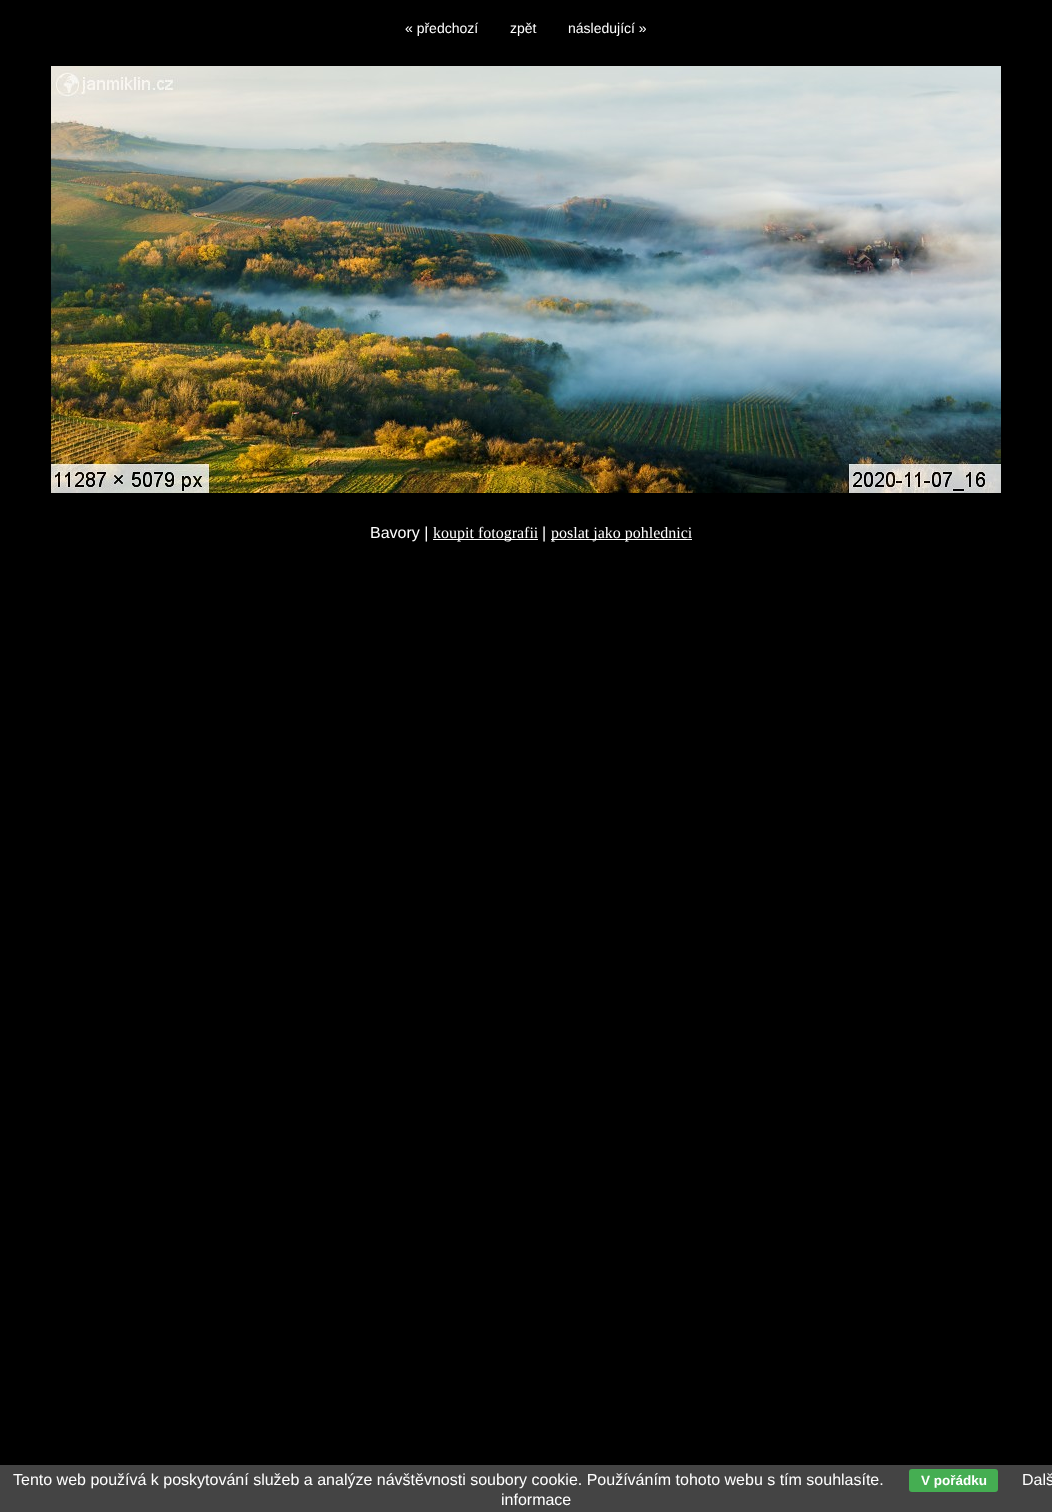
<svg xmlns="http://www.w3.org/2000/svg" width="1052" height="1512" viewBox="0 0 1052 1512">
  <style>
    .t1 { font: 14px Liberation Sans; fill: #fff; }
    .t2 { font: 16px Liberation Sans; fill: #fff; }
    .t3 { font: 16px Liberation Serif; fill: #fff; }
    .t4 { font: bold 13.5px Liberation Sans; fill: #fff; }
  </style>
  <rect width="100%" height="100%" fill="#000"/>
  <text x="405" y="33" class="t1">« předchozí</text>
  <text x="510" y="33" class="t1">zpět</text>
  <text x="568" y="33" class="t1">následující »</text>
  <image x="51" y="66" width="950" height="427" href="images/1.png"/>
  <text x="370" y="538" class="t2">Bavory |</text>
  <rect x="433" y="539" width="105" height="1" fill="#fff"/>
  <text x="433" y="538" class="t3">koupit fotografii</text>
  <text x="542" y="538" class="t2">|</text>
  <rect x="551" y="539" width="141" height="1" fill="#fff"/>
  <text x="551" y="538" class="t3">poslat jako pohlednici</text>
  <rect x="0" y="1465" width="1052" height="47" fill="#444"/>
  <text x="13" y="1485" class="t2">Tento web používá k poskytování služeb a analýze návštěvnosti soubory cookie. Používáním tohoto webu s tím souhlasíte.</text>
  <rect x="909" y="1469" width="89" height="23" rx="3" fill="#45ae52"/>
  <text x="921" y="1485" class="t4">V pořádku</text>
  <text x="1022" y="1485" class="t2">Dalš</text>
  <text x="501" y="1505" class="t2">informace</text>
</svg>
